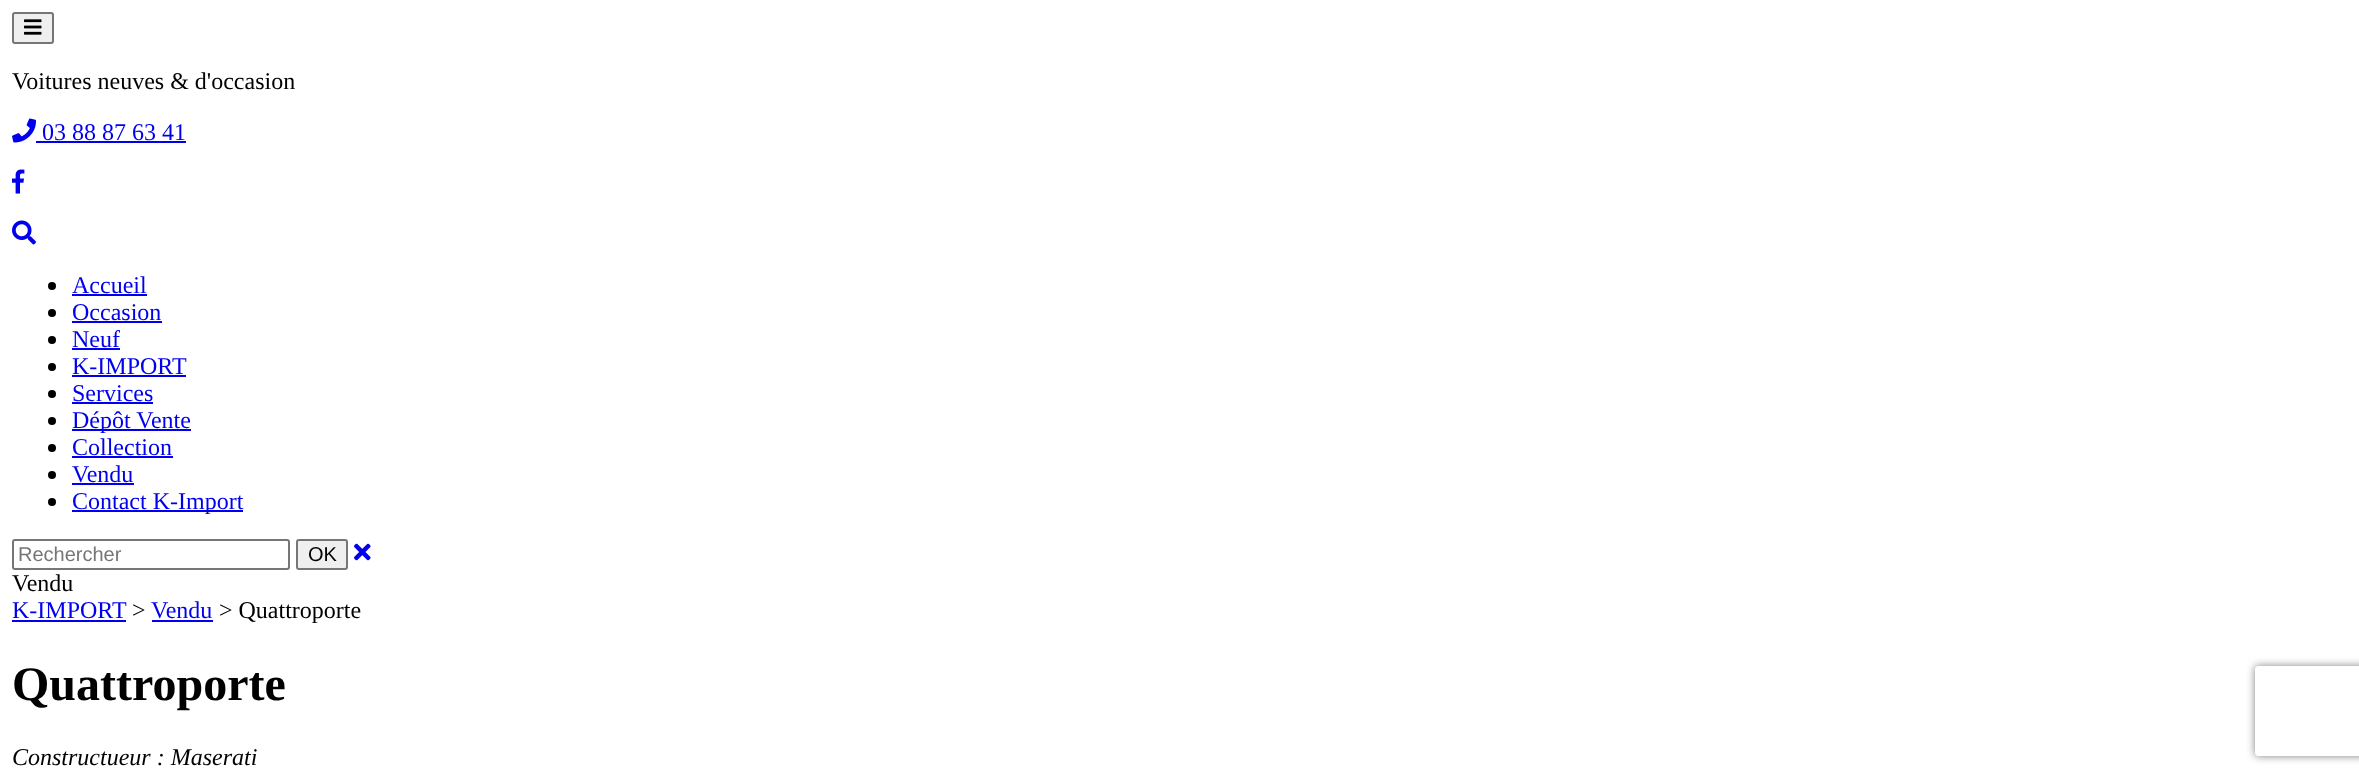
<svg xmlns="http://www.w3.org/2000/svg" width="2359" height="776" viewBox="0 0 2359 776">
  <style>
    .t1 { font: 24px Liberation Serif; fill: #000; }
    .t2 { font: 24px Liberation Serif; fill: #00e; }
    .t3 { font: 20px Liberation Sans; fill: #757575; }
    .t4 { font: 20px Liberation Sans; fill: #000; }
    .t5 { font: bold 48px Liberation Serif; fill: #000; }
    .t6 { font: italic 24px Liberation Serif; fill: #000; }
  </style>
  <defs>
    <clipPath id="clip1"><path d="M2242 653H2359V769H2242ZM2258 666H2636C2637.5 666 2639 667.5 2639 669V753C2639 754.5 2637.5 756 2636 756H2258C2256.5 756 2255 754.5 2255 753V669C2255 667.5 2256.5 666 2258 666Z" clip-rule="evenodd"/></clipPath>
  </defs>
  <rect width="100%" height="100%" fill="#fff"/>
  <rect x="13" y="13" width="40" height="30" rx="2" fill="#efefef" stroke="#767676" stroke-width="2"/>
  <image x="24" y="19" width="18" height="16" href="images/1.png"/>
  <text x="12" y="89" class="t1">Voitures neuves &amp; d'occasion</text>
  <image x="12" y="118" width="24" height="25" href="images/2.png"/>
  <text x="42" y="140" class="t2">03 88 87 63 41</text>
  <rect x="36" y="141" width="150" height="2" fill="#00e"/>
  <image x="12" y="169" width="13" height="25" href="images/3.png"/>
  <image x="12" y="220" width="24" height="25" href="images/4.png"/>
  <circle cx="52" cy="286" r="4" fill="#000"/>
  <text x="72" y="293" class="t2">Accueil</text>
  <rect x="72" y="294" width="75" height="2" fill="#00e"/>
  <circle cx="52" cy="313" r="4" fill="#000"/>
  <text x="72" y="320" class="t2">Occasion</text>
  <rect x="72" y="321" width="90" height="2" fill="#00e"/>
  <circle cx="52" cy="340" r="4" fill="#000"/>
  <text x="72" y="347" class="t2">Neuf</text>
  <rect x="72" y="348" width="48" height="2" fill="#00e"/>
  <circle cx="52" cy="367" r="4" fill="#000"/>
  <text x="72" y="374" class="t2">K-IMPORT</text>
  <rect x="72" y="375" width="114" height="2" fill="#00e"/>
  <circle cx="52" cy="394" r="4" fill="#000"/>
  <text x="72" y="401" class="t2">Services</text>
  <rect x="72" y="402" width="81" height="2" fill="#00e"/>
  <circle cx="52" cy="421" r="4" fill="#000"/>
  <rect x="72" y="429" width="119" height="2" fill="#00e"/>
  <text x="72" y="428" class="t2">Dépôt Vente</text>
  <circle cx="52" cy="448" r="4" fill="#000"/>
  <text x="72" y="455" class="t2">Collection</text>
  <rect x="72" y="456" width="101" height="2" fill="#00e"/>
  <circle cx="52" cy="475" r="4" fill="#000"/>
  <text x="72" y="482" class="t2">Vendu</text>
  <rect x="72" y="483" width="62" height="2" fill="#00e"/>
  <circle cx="52" cy="502" r="4" fill="#000"/>
  <rect x="72" y="510" width="171" height="2" fill="#00e"/>
  <text x="72" y="509" class="t2">Contact K-Import</text>
  <rect x="13" y="540" width="276" height="29" rx="2" fill="none" stroke="#767676" stroke-width="2"/>
  <text x="18" y="561" class="t3">Rechercher</text>
  <rect x="297" y="540" width="50" height="29" rx="2" fill="#efefef" stroke="#767676" stroke-width="2"/>
  <text x="308" y="561" class="t4">OK</text>
  <image x="354" y="543" width="17" height="18" href="images/5.png"/>
  <text x="12" y="591" class="t1">Vendu</text>
  <text x="12" y="618" class="t2">K-IMPORT</text>
  <rect x="12" y="620" width="114" height="2" fill="#00e"/>
  <text x="132" y="618" class="t1">&gt;</text>
  <text x="151" y="618" class="t2">Vendu</text>
  <rect x="152" y="620" width="61" height="2" fill="#00e"/>
  <text x="219" y="618" class="t1">&gt; Quattroporte</text>
  <text x="12" y="700" class="t5">Quattroporte</text>
  <text x="12" y="765" class="t6">Constructueur : Maserati</text>
  <g clip-path="url(#clip1)">
    <rect x="2255" y="666" width="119" height="90" rx="3" fill="#808080" filter="blur(4px)"/>
  </g>
</svg>
